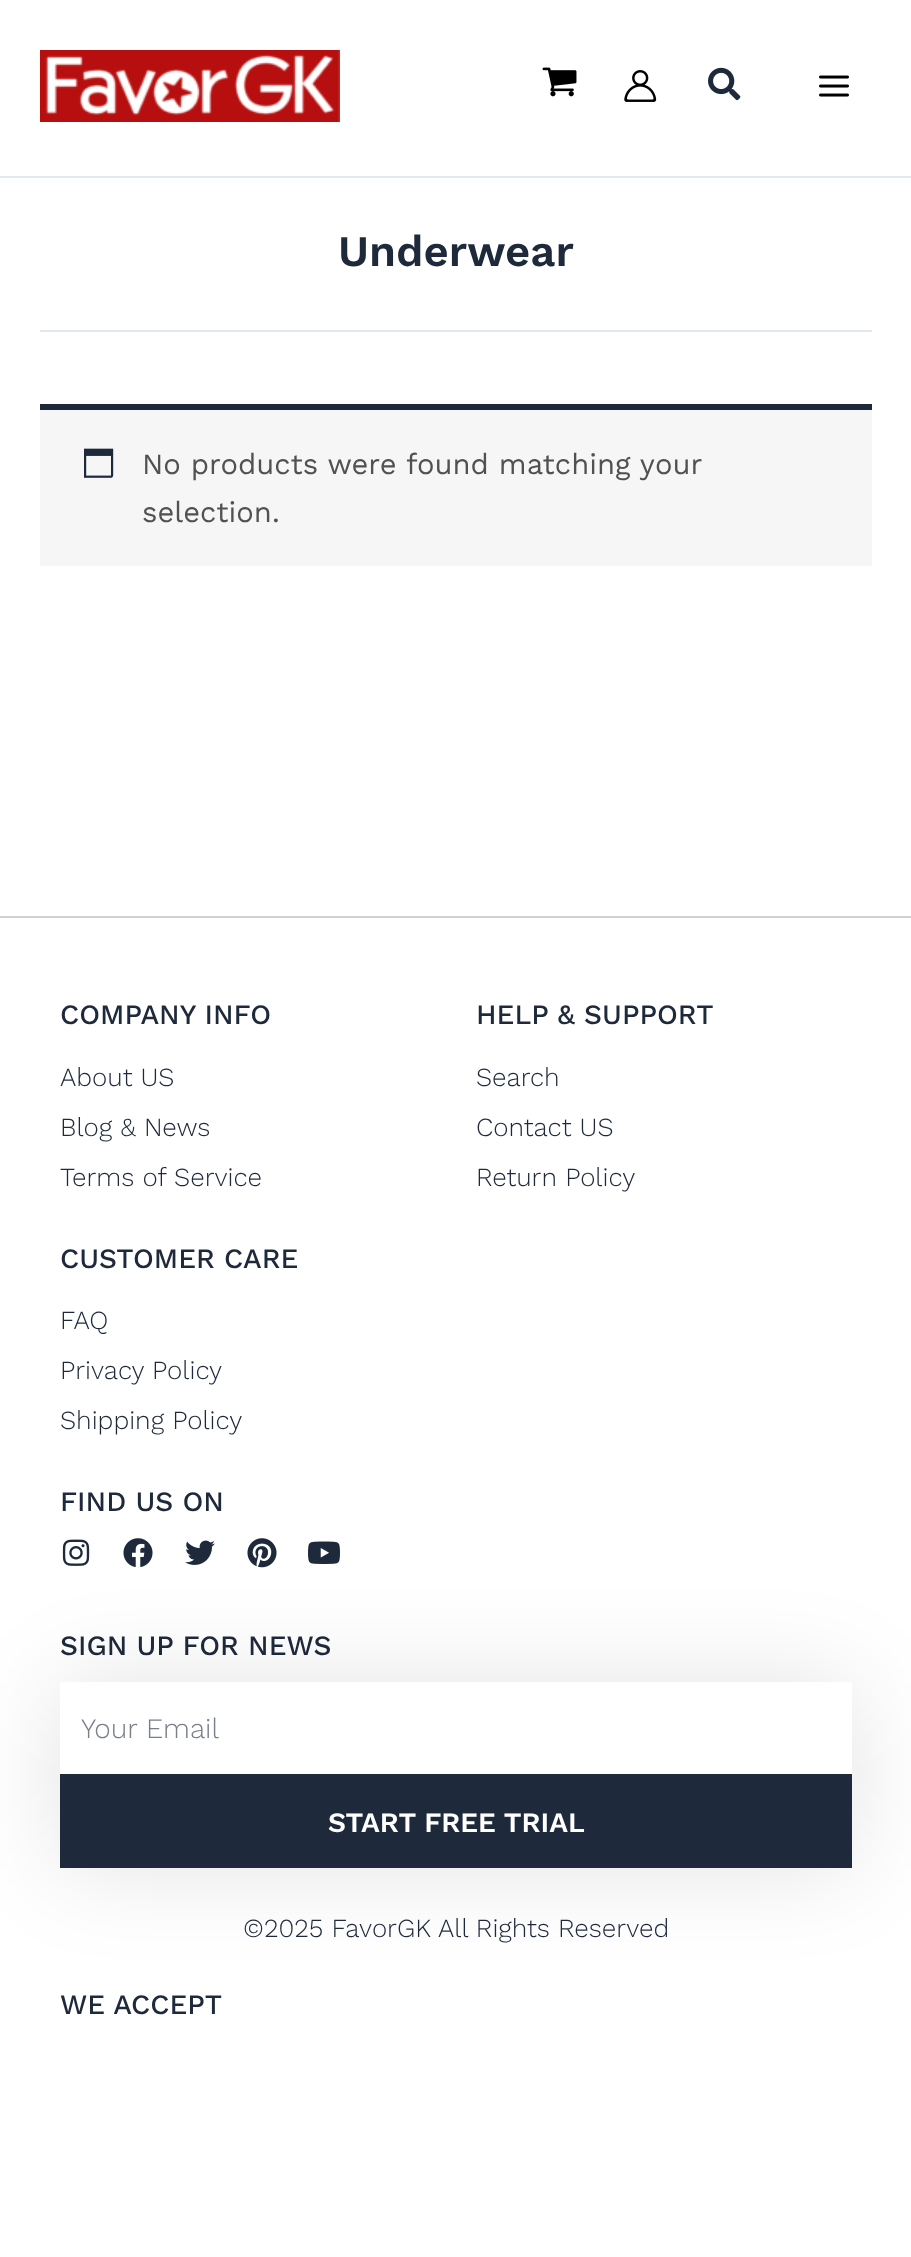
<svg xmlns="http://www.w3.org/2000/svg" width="911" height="2257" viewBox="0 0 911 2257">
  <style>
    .t1 { font: 600 43.75px Work Sans; fill: #1e293b; }
    .t2 { font: 29.2px Work Sans; fill: #515151; }
    .t3 { font: 500 28px Work Sans; fill: #1e293b; }
    .t4 { font: 300 26px Work Sans; fill: #1e293b; }
    .t5 { font: 300 28px Work Sans; fill: #787f89; }
    .t6 { font: 600 28px Work Sans; fill: #fff; }
  </style>
  <defs>
    <clipPath id="clip1"><path d="M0 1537H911V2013H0ZM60 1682H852V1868H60Z" clip-rule="evenodd"/></clipPath>
  </defs>
  <rect width="100%" height="100%" fill="#fff"/>
  <rect x="0" y="176" width="911" height="2" fill="#e2e8f0"/>
  <image x="40" y="50" width="300" height="72" href="images/1.png"/>
  <image x="542" y="67" width="35" height="30" href="images/2.png"/>
  <image x="624" y="70" width="33" height="32" href="images/3.png"/>
  <image x="708" y="67" width="33" height="34" href="images/4.png"/>
  <image x="819" y="75" width="30" height="22" href="images/5.png"/>
  <rect x="40" y="330" width="832" height="2" fill="#e2e8f0"/>
  <text x="338" y="266" class="t1">Underwear</text>
  <rect x="40" y="410" width="832" height="156" fill="#f7f6f7"/>
  <rect x="40" y="404" width="832" height="6" fill="#1e293b"/>
  <image x="84" y="448" width="30" height="30" href="images/6.png"/>
  <text x="142" y="474" class="t2">No products were found matching your</text>
  <text x="142" y="522" class="t2">selection.</text>
  <rect x="0" y="916" width="911" height="2" fill="#d1d1d1"/>
  <text x="60" y="1024" class="t3">COMPANY INFO</text>
  <text x="60" y="1086" class="t4">About US</text>
  <text x="60" y="1136" class="t4">Blog &amp; News</text>
  <text x="60" y="1186" class="t4">Terms of Service</text>
  <text x="476" y="1024" class="t3">HELP &amp; SUPPORT</text>
  <text x="476" y="1086" class="t4">Search</text>
  <text x="476" y="1136" class="t4">Contact US</text>
  <text x="476" y="1186" class="t4">Return Policy</text>
  <text x="60" y="1268" class="t3">CUSTOMER CARE</text>
  <text x="60" y="1329" class="t4">FAQ</text>
  <text x="60" y="1379" class="t4">Privacy Policy</text>
  <text x="60" y="1429" class="t4">Shipping Policy</text>
  <text x="60" y="1511" class="t3">FIND US ON</text>
  <image x="62" y="1539" width="28" height="27" href="images/7.png"/>
  <image x="123" y="1538" width="30" height="30" href="images/8.png"/>
  <image x="185" y="1540" width="30" height="25" href="images/9.png"/>
  <image x="247" y="1538" width="30" height="30" href="images/10.png"/>
  <image x="308" y="1541" width="32" height="23" href="images/11.png"/>
  <text x="60" y="1655" class="t3">SIGN UP FOR NEWS</text>
  <g clip-path="url(#clip1)">
    <rect x="60" y="1682" width="792" height="186" fill="#0000001c" filter="blur(48px)"/>
  </g>
  <text x="81" y="1738" class="t5">Your Email</text>
  <rect x="60" y="1774" width="792" height="94" fill="#1e293b"/>
  <text x="328" y="1832" class="t6">START FREE TRIAL</text>
  <text x="243" y="1937" class="t4">©2025 FavorGK All Rights Reserved</text>
  <text x="60" y="2014" class="t3">WE ACCEPT</text>
</svg>
